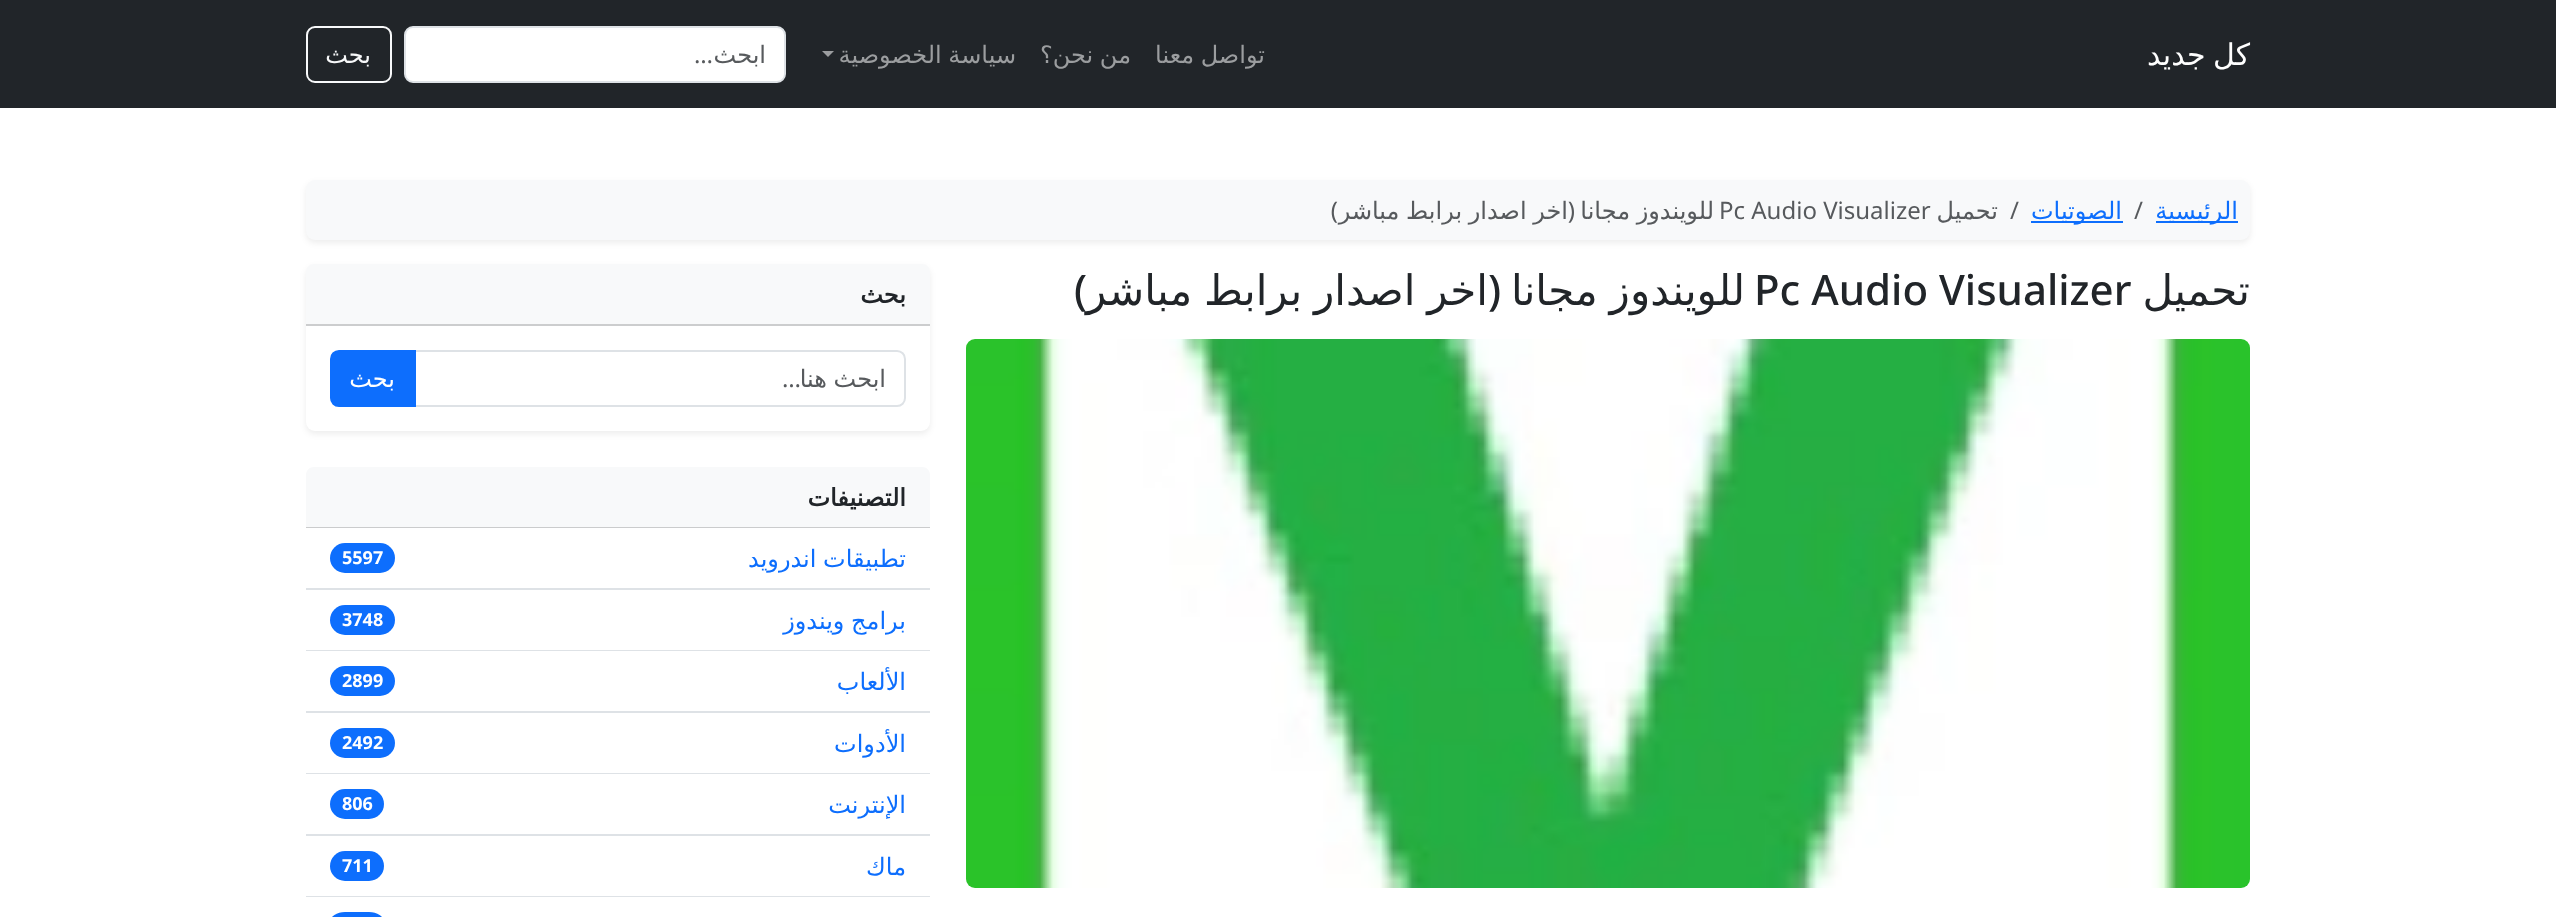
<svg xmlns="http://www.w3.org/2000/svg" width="2556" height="917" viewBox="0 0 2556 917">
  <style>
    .t1 { font: 30px DejaVu Sans; direction: rtl; fill: #fff; }
    .t2 { font: 24px DejaVu Sans; direction: rtl; fill: #9b9d9f; }
    .t3 { font: 24px DejaVu Sans; direction: rtl; fill: #575a5d; }
    .t4 { font: 24px Noto Sans; direction: rtl; fill: #575a5d; }
    .t5 { font: 24px DejaVu Sans; direction: rtl; fill: #f8f9fa; }
    .t6 { font: 24px DejaVu Sans; direction: rtl; fill: #0d6efd; }
    .t7 { font: 24px Noto Sans; fill: #575a5d; }
    .t8 { font: 42px DejaVu Sans; direction: rtl; fill: #212529; }
    .t9 { font: 500 42px Noto Sans; fill: #212529; }
    .t10 { font: 500 42px Noto Sans; direction: rtl; fill: #212529; }
    .t11 { font: bold 24px DejaVu Sans; direction: rtl; fill: #212529; }
    .t12 { font: 24px DejaVu Sans; direction: rtl; fill: #fff; }
    .t13 { font: bold 18px Noto Sans; fill: #fff; }
  </style>
  <rect width="100%" height="100%" fill="#fff"/>
  <rect x="0" y="0" width="2556" height="108" fill="#212529"/>
  <text x="2250" y="65" word-spacing="-2" class="t1">كل جديد</text>
  <text x="1265" y="63" word-spacing="-1" class="t2">تواصل معنا</text>
  <text x="1131" y="63" word-spacing="-1" class="t2">من نحن؟</text>
  <text x="1016" y="63" word-spacing="-1" class="t2">سياسة الخصوصية</text>
  <path d="M822 51H834L828 57Z" fill="#9b9d9f"/>
  <rect x="405" y="27" width="380" height="55" rx="8" fill="#fff" stroke="#dee2e6" stroke-width="2"/>
  <text x="766" y="63" class="t3">ابحث</text>
  <text x="713" y="63" class="t4">…</text>
  <rect x="307" y="27" width="84" height="55" rx="8" fill="none" stroke="#f8f9fa" stroke-width="2"/>
  <text x="371" y="63" class="t5">بحث</text>
  <rect x="306" y="183" width="1944" height="60" rx="9" fill="#00000012" filter="blur(3px)"/>
  <rect x="306" y="180" width="1944" height="60" rx="9" fill="#f8f9fa"/>
  <rect x="2156" y="221" width="82" height="2" fill="#0d6efd"/>
  <text x="2238" y="219" class="t6">الرئيسية</text>
  <text x="2134" y="219" class="t7">/</text>
  <rect x="2031" y="221" width="92" height="2" fill="#0d6efd"/>
  <text x="2122" y="219" class="t6">الصوتيات</text>
  <text x="2010" y="219" class="t7">/</text>
  <text x="1998" y="219" class="t3">تحميل</text>
  <text x="1719" y="219" class="t7">Pc Audio Visualizer</text>
  <text x="1714" y="219" word-spacing="-1" class="t3">للويندوز مجانا</text>
  <text x="1338" y="219" class="t4">)</text>
  <text x="1568" y="219" word-spacing="-1" class="t3">اخر اصدار برابط مباشر</text>
  <text x="1575" y="219" class="t4">(</text>
  <text x="2250" y="305" class="t8">تحميل</text>
  <text x="1754" y="305" class="t9">Pc Audio Visualizer</text>
  <text x="1745" y="305" word-spacing="-1.5" class="t8">للويندوز مجانا</text>
  <text x="1087" y="305" class="t10">)</text>
  <text x="1488" y="305" word-spacing="-1.5" class="t8">اخر اصدار برابط مباشر</text>
  <text x="1501" y="305" class="t10">(</text>
  <image x="966" y="339" width="1284" height="549" href="images/1.png"/>
  <rect x="306" y="267" width="624" height="167" rx="9" fill="#00000012" filter="blur(3px)"/>
  <rect x="306" y="264" width="624" height="167" rx="9" fill="#fff"/>
  <path d="M314 264H922C926.5 264 930 267.5 930 272V326H306V272C306 267.5 309.5 264 314 264Z" fill="#f8f9fa"/>
  <rect x="306" y="324" width="624" height="2" fill="#cccdce"/>
  <text x="906" y="303" class="t11">بحث</text>
  <path d="M415 351H897C901.5 351 905 354.5 905 359V398C905 402.5 901.5 406 897 406H415Z" fill="none" stroke="#dee2e6" stroke-width="2"/>
  <text x="886" y="387" word-spacing="-1" class="t3">ابحث هنا</text>
  <text x="801" y="387" class="t4">…</text>
  <path d="M339 351H415V406H339C334.5 406 331 402.5 331 398V359C331 354.5 334.5 351 339 351Z" fill="#0d6efd" stroke="#0d6efd" stroke-width="2"/>
  <text x="395" y="387" class="t12">بحث</text>
  <path d="M314 467H922C926.5 467 930 470.5 930 475V528H306V475C306 470.5 309.5 467 314 467Z" fill="#f8f9fa"/>
  <rect x="306" y="527" width="624" height="1" fill="#cbcccd"/>
  <text x="906" y="506" class="t11">التصنيفات</text>
  <rect x="306" y="588" width="624" height="2" fill="#dee2e6"/>
  <text x="906" y="567" word-spacing="-1" class="t6">تطبيقات اندرويد</text>
  <rect x="330" y="543" width="65" height="30" rx="15" fill="#0d6efd"/>
  <text x="342" y="564" class="t13">5597</text>
  <rect x="306" y="650" width="624" height="1" fill="#dee2e6"/>
  <text x="906" y="629" word-spacing="-1" class="t6">برامج ويندوز</text>
  <rect x="330" y="605" width="65" height="30" rx="15" fill="#0d6efd"/>
  <text x="342" y="626" class="t13">3748</text>
  <rect x="306" y="711" width="624" height="2" fill="#dee2e6"/>
  <text x="906" y="690" class="t6">الألعاب</text>
  <rect x="330" y="666" width="65" height="30" rx="15" fill="#0d6efd"/>
  <text x="342" y="687" class="t13">2899</text>
  <rect x="306" y="773" width="624" height="1" fill="#dee2e6"/>
  <text x="906" y="752" class="t6">الأدوات</text>
  <rect x="330" y="728" width="65" height="30" rx="15" fill="#0d6efd"/>
  <text x="342" y="749" class="t13">2492</text>
  <rect x="306" y="834" width="624" height="2" fill="#dee2e6"/>
  <text x="906" y="813" class="t6">الإنترنت</text>
  <rect x="330" y="789" width="54" height="30" rx="15" fill="#0d6efd"/>
  <text x="342" y="810" class="t13">806</text>
  <rect x="306" y="896" width="624" height="1" fill="#dee2e6"/>
  <text x="906" y="875" class="t6">ماك</text>
  <rect x="330" y="851" width="54" height="30" rx="15" fill="#0d6efd"/>
  <text x="342" y="872" class="t13">711</text>
  <rect x="330" y="912" width="54" height="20" rx="15" fill="#0d6efd"/>
</svg>
